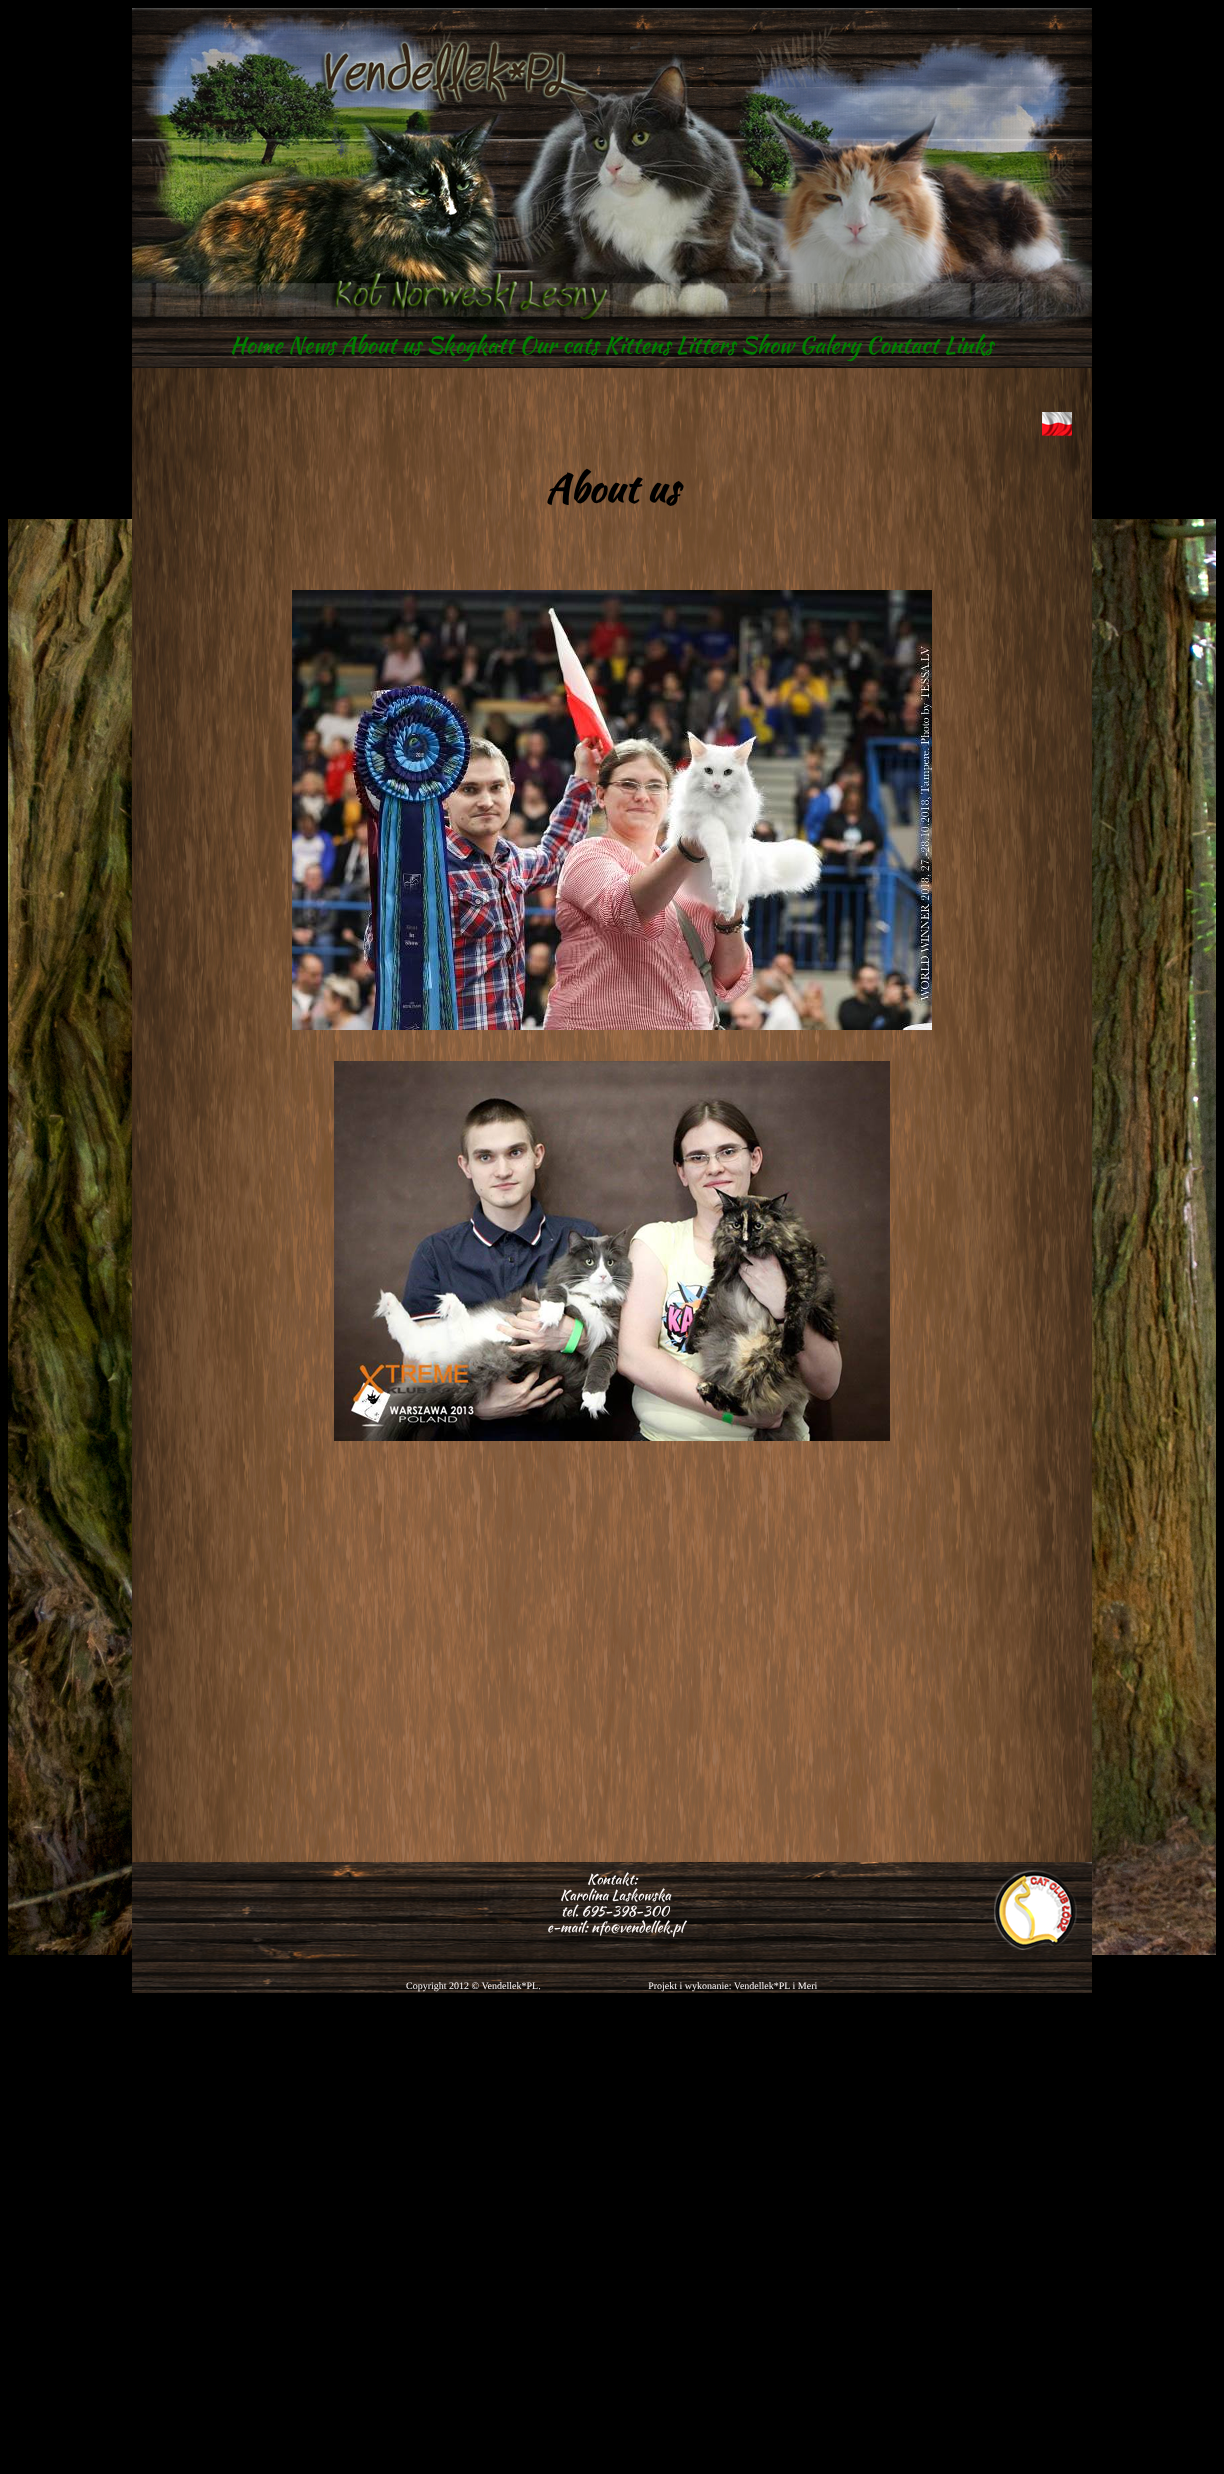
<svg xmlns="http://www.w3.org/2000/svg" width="1224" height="2474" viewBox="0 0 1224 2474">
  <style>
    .t1 { font: 23px Kaushan Script; fill: #008000; }
    .t2 { font: bold 38.5px Kaushan Script; fill: #000; }
    .t3 { font: 14px Kaushan Script; fill: #fdf9f9; }
    .t4 { font: 10px Liberation Serif; fill: #fdf9f9; }
  </style>
  <rect width="100%" height="100%" fill="#000"/>
  <image x="8" y="519" width="1208" height="1436" href="images/1.png"/>
  <image x="132" y="8" width="960" height="320" href="images/2.png"/>
  <image x="132" y="328" width="960" height="40" href="images/3.png"/>
  <text x="230" y="353" class="t1">Home News About us Skogkatt Our cats Kittens Litters Show Galery Contact Links</text>
  <image x="132" y="368" width="960" height="1494" href="images/4.png"/>
  <image x="1042" y="412" width="30" height="24" href="images/5.png"/>
  <text x="545" y="502" class="t2">About us</text>
  <image x="292" y="590" width="640" height="440" href="images/6.png"/>
  <image x="334" y="1061" width="556" height="380" href="images/7.png"/>
  <image x="132" y="1862" width="960" height="100" href="images/8.png"/>
  <text x="587" y="1884" class="t3">Kontakt:</text>
  <text x="560" y="1900" class="t3">Karolina Laskowska</text>
  <text x="561" y="1916" class="t3">tel. 695-398-300</text>
  <text x="547" y="1932" class="t3">e-mail: nfo@vendellek.pl</text>
  <image x="132" y="1962" width="960" height="31" href="images/9.png"/>
  <text x="406" y="1989" class="t4" xml:space="preserve">Copyright 2012 © Vendellek*PL.                                           Projekt i wykonanie: Vendellek*PL i Meri</text>
</svg>
